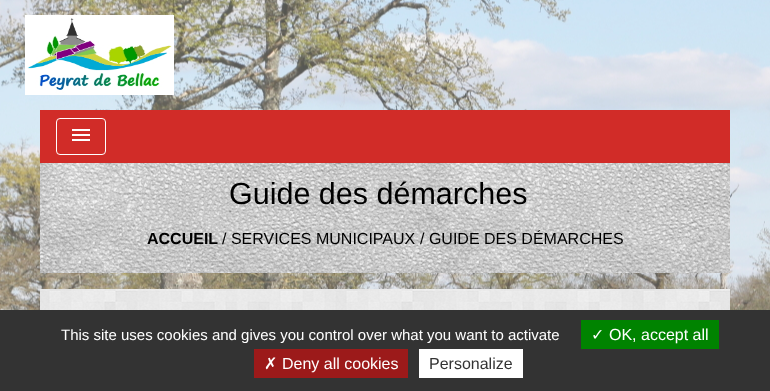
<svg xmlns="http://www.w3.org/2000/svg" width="770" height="391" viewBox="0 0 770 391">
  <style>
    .t1 { font: 30.5px Liberation Sans; fill: #000; }
    .t2 { font: bold 16px Liberation Sans; fill: #000; }
    .t3 { font: 16px Liberation Sans; fill: #000; }
    .t4 { font: 15px Liberation Sans; fill: #fff; }
    .t5 { font: 16px DejaVu Sans; fill: #fff; }
    .t6 { font: 16px Liberation Sans; fill: #fff; }
    .t7 { font: 16px Liberation Sans; fill: #333; }
  </style>
  <rect width="100%" height="100%" fill="#fff"/>
  <image x="0" y="0" width="770" height="310" href="images/1.png"/>
  <image x="25" y="15" width="149" height="80" href="images/2.png"/>
  <rect x="40" y="110" width="690" height="53" fill="#d12c28"/>
  <rect x="56.5" y="118.5" width="49" height="36" rx="3.5" fill="none" stroke="#fff"/>
  <image x="72" y="129" width="18" height="12" href="images/3.png"/>
  <rect x="40" y="163" width="690" height="110" fill="#fff"/>
  <image x="40" y="163" width="690" height="110" href="images/4.png"/>
  <text x="229" y="204" class="t1">Guide des démarches</text>
  <text x="147" y="244" class="t2">ACCUEIL</text>
  <text x="222" y="244" class="t3">/ SERVICES MUNICIPAUX</text>
  <text x="420" y="244" class="t3">/ GUIDE DES DÉMARCHES</text>
  <rect x="40" y="289" width="690" height="21" fill="#fff"/>
  <image x="40" y="289" width="690" height="21" href="images/5.png"/>
  <rect x="0" y="310" width="770" height="81" fill="#333"/>
  <text x="61" y="340" class="t4">This site uses cookies and gives you control over what you want to activate</text>
  <rect x="581" y="320" width="138" height="29" fill="#008300"/>
  <text x="591" y="340" class="t5">✓</text>
  <text x="609" y="340" class="t6">OK, accept all</text>
  <rect x="254" y="349" width="154" height="29" fill="#9c1a1a"/>
  <text x="264" y="369" class="t5">✗</text>
  <text x="282" y="369" class="t6">Deny all cookies</text>
  <rect x="419" y="349" width="104" height="29" fill="#fff"/>
  <text x="429" y="369" class="t7">Personalize</text>
</svg>
